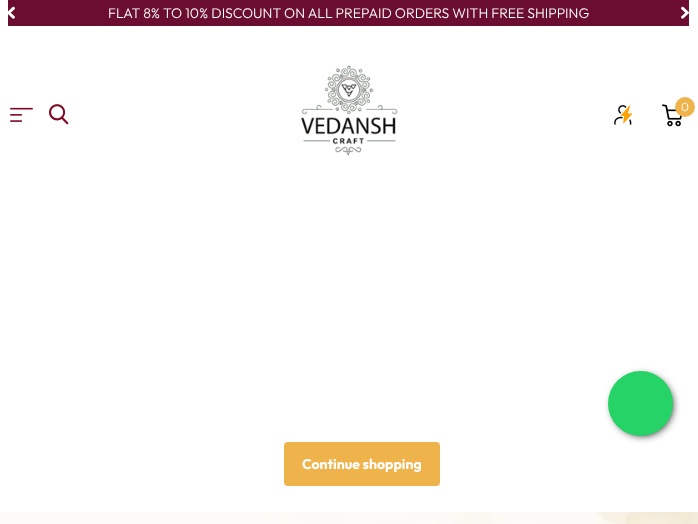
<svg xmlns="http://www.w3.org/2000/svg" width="698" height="524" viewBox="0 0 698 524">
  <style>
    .t1 { font: 300 14px Outfit; fill: #fff; }
    .t2 { font: 300 12px Outfit; fill: #fff; }
    .t3 { font: bold 14px Outfit; fill: #fff; }
  </style>
  <rect width="100%" height="100%" fill="#fff"/>
  <rect x="8" y="0" width="681" height="26" fill="#6a0d2e"/>
  <image x="8" y="6" width="7" height="13" href="images/1.png"/>
  <text x="108" y="18" class="t1">FLAT 8% TO 10% DISCOUNT ON ALL PREPAID ORDERS WITH FREE SHIPPING</text>
  <image x="681" y="6" width="8" height="13" href="images/2.png"/>
  <image x="10" y="107" width="23" height="15" href="images/3.png"/>
  <image x="49" y="104" width="20" height="21" href="images/4.png"/>
  <image x="300" y="65" width="98" height="91" href="images/5.png"/>
  <image x="614" y="105" width="19" height="20" href="images/6.png"/>
  <image x="662" y="104" width="20" height="23" href="images/7.png"/>
  <circle cx="685" cy="107" r="10" fill="#efb34c"/>
  <text x="681" y="111" class="t2">0</text>
  <rect x="284" y="442" width="156" height="44" rx="4" fill="#efb34c"/>
  <text x="302" y="469" class="t3">Continue shopping</text>
  <image x="0" y="512" width="698" height="12" href="images/8.png"/>
  <rect x="613" y="376" width="59" height="59" rx="29.5" fill="#000" filter="blur(4px)"/>
  <circle cx="640.5" cy="403.5" r="32.5" fill="#25d366"/>
</svg>
